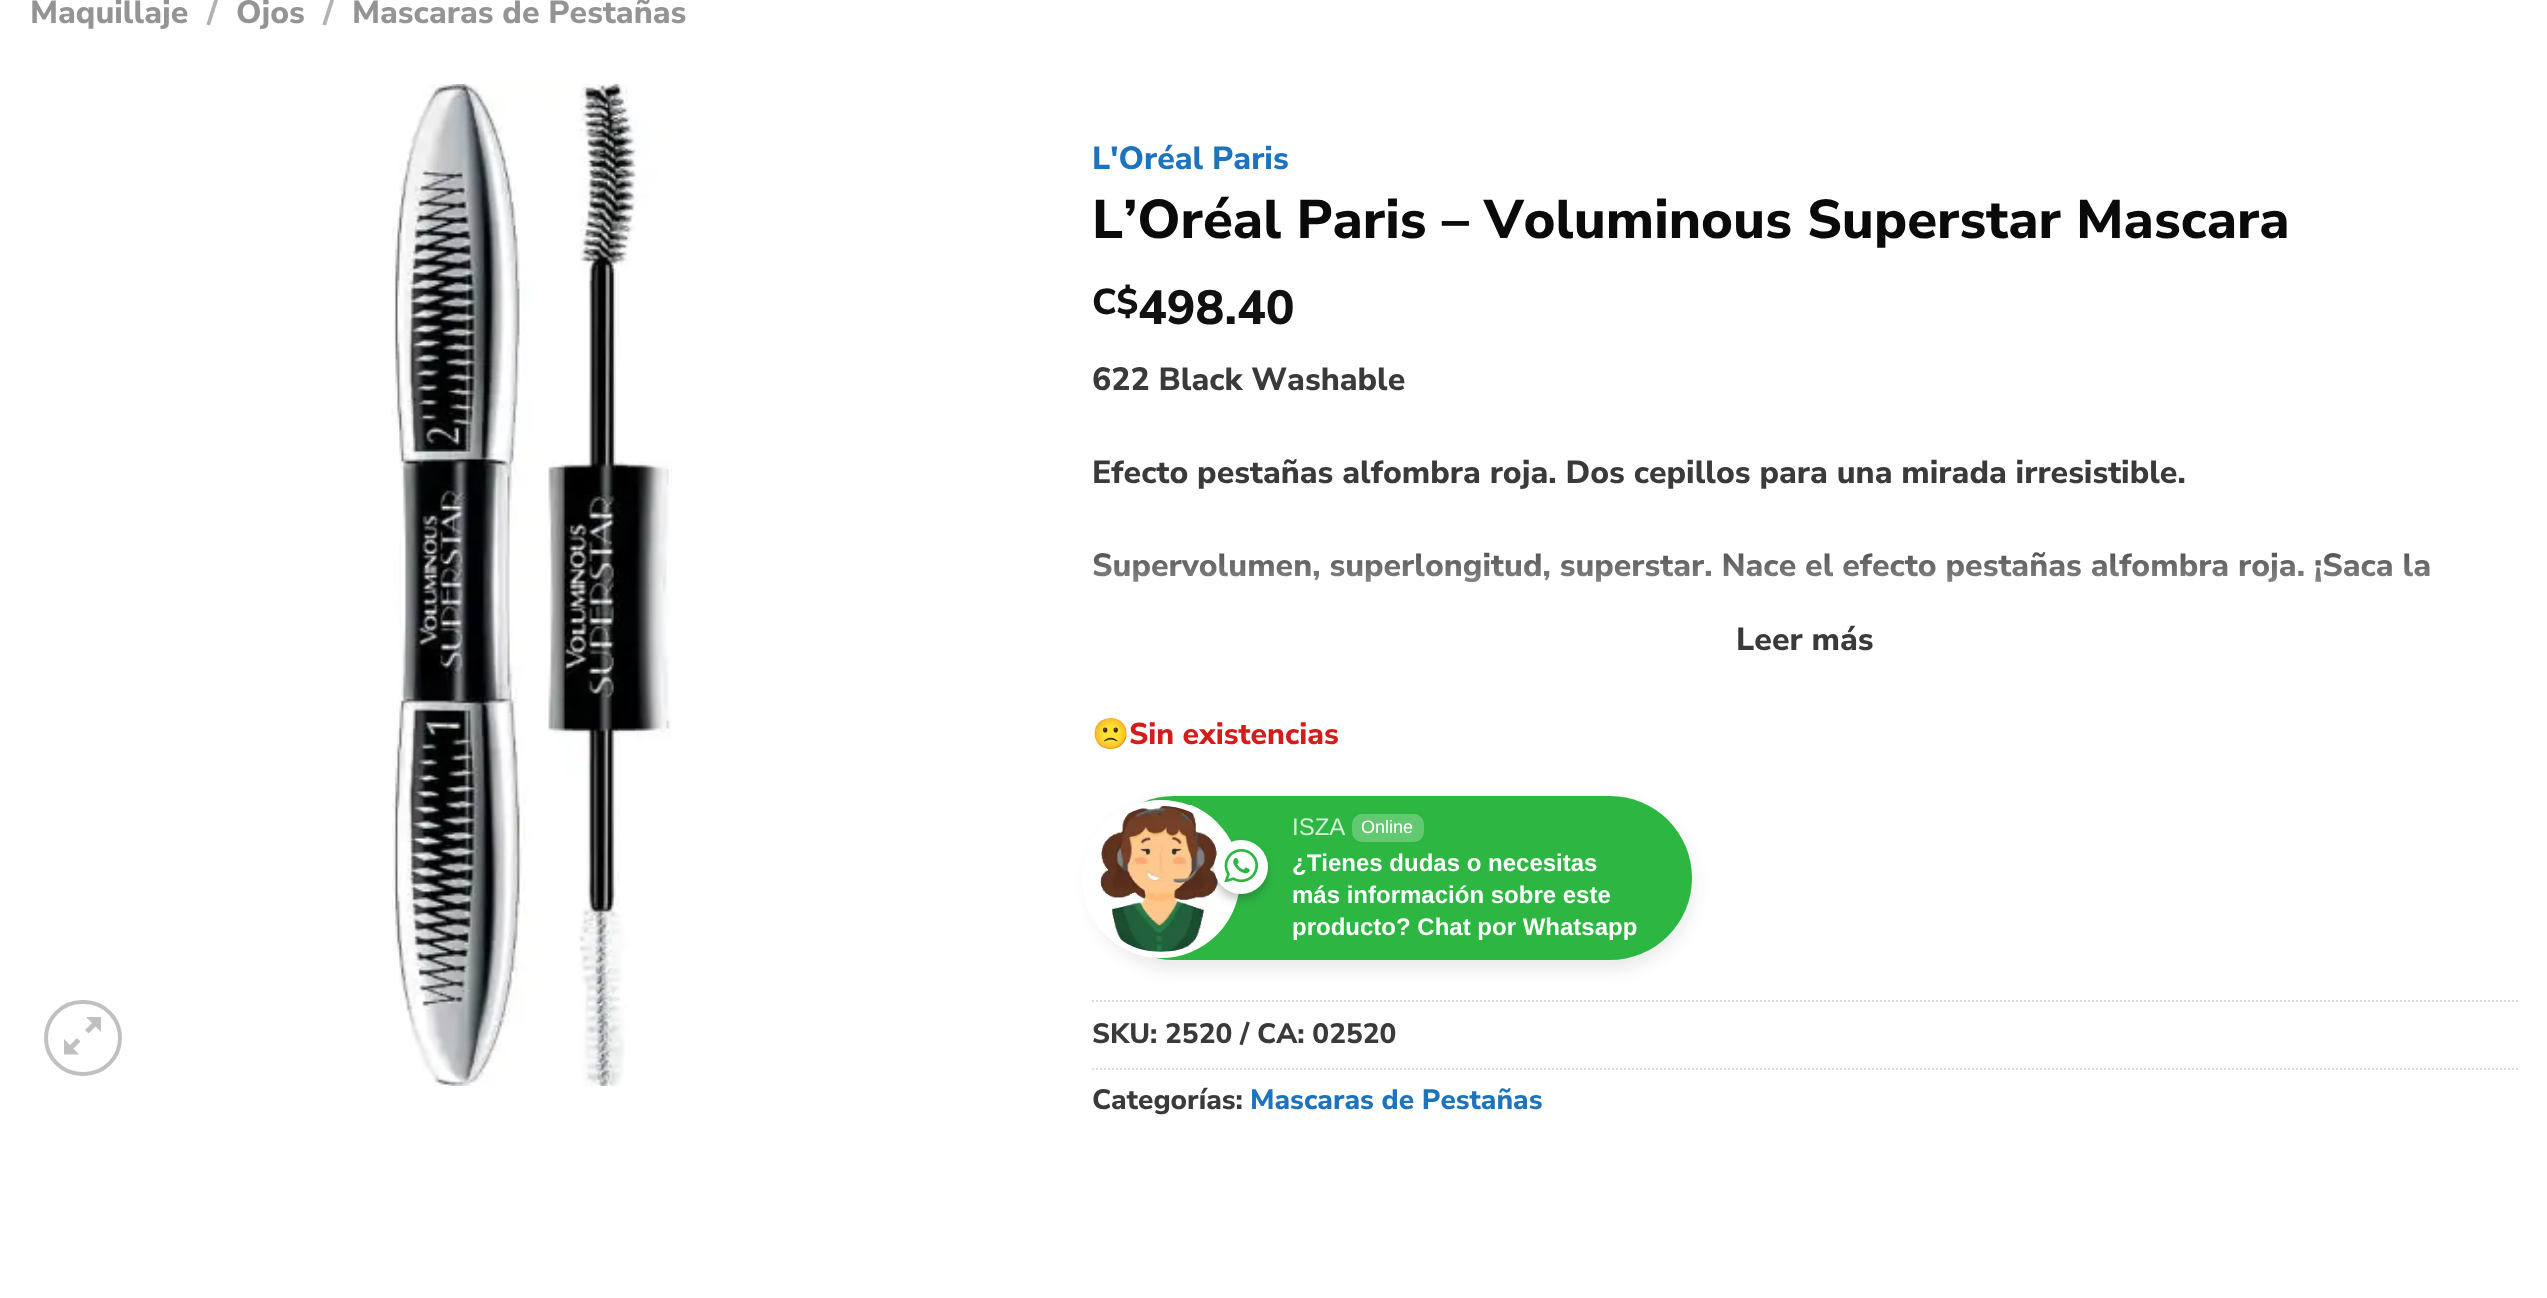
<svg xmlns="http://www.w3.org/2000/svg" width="2547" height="1298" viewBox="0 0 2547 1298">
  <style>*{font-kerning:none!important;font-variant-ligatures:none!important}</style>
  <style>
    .t1 { font: 800 32px Nunito Sans; fill: #949494; }
    .t2 { font: 800 32px Nunito Sans; fill: #b2b2b2; }
    .t3 { font: 800 32px Nunito Sans; fill: #1e73be; }
    .t4 { font: 800 54.4px Nunito Sans; fill: #0a0a0a; }
    .t5 { font: 800 36px Nunito Sans; fill: #111; }
    .t6 { font: 800 48px Nunito Sans; fill: #111; }
    .t7 { font: 800 32px Nunito Sans; fill: #3a3a3a; }
    .t8 { font: bold 30px Noto Color Emoji; fill: #d41c1c; }
    .t9 { font: 800 30px Nunito Sans; fill: #d41c1c; }
    .t10 { font: 24px Liberation Sans; fill: #d5f0d9; }
    .t11 { font: 18px Liberation Sans; fill: #fff; }
    .t12 { font: bold 24px Liberation Sans; fill: #fff; }
    .t13 { font: 800 28px Nunito Sans; fill: #3a3a3a; }
    .t14 { font: 800 28px Nunito Sans; fill: #1e73be; }
  </style>
  <defs>
    <linearGradient id="g1" gradientUnits="userSpaceOnUse" x1="1805" y1="536" x2="1805" y2="656"><stop offset="0" stop-color="#fff" stop-opacity="0"/><stop offset="1" stop-color="#fff"/></linearGradient>
  </defs>
  <rect width="100%" height="100%" fill="#fff"/>
  <text x="30" y="23" class="t1">Maquillaje</text>
  <text x="207" y="23" class="t2">/</text>
  <text x="236" y="23" class="t1">Ojos</text>
  <text x="323" y="23" class="t2">/</text>
  <text x="352" y="23" class="t1">Mascaras de Pestañas</text>
  <rect x="46" y="1002" width="74" height="72" rx="36" fill="none" stroke="#c0c0c0" stroke-width="4"/>
  <path d="M101 1017V1032L95.5 1026.5L88.5 1033.5L85 1030L92 1023L86 1017ZM80.5 1041.5L73.5 1048.5L79 1054.5H64V1039L70 1045L77 1038Z" fill="#c0c0c0"/>
  <image x="391" y="84" width="281" height="1002" href="images/1.png"/>
  <text x="1092" y="169" class="t3">L'Oréal Paris</text>
  <text x="1092" y="238" class="t4">L’Oréal Paris – Voluminous</text>
  <text x="1807" y="238" class="t4">Superstar Mascara</text>
  <text x="1092" y="314" class="t5">C$</text>
  <text x="1138" y="324" class="t6">498.40</text>
  <text x="1092" y="390" class="t7">622 Black Washable</text>
  <text x="1092" y="483" class="t7">Efecto pestañas alfombra roja. Dos cepillos para una mirada irresistible.</text>
  <text x="1092" y="576" class="t7">Supervolumen, superlongitud, superstar. Nace el efecto pestañas alfombra roja. ¡Saca la</text>
  <rect x="1093" y="552" width="1336" height="31" fill="url(#g1)"/>
  <text x="1736" y="650" class="t7">Leer más</text>
  <text x="1092" y="744" class="t8">🙁</text>
  <text x="1129" y="744" class="t9">Sin existencias</text>
  <rect x="1090" y="802" width="604" height="168" rx="84" fill="#20202517" filter="blur(8px)"/>
  <rect x="1092" y="796" width="600" height="164" rx="82" fill="#2db742"/>
  <image x="1088" y="805" width="146" height="146" href="images/2.png"/>
  <circle cx="1161" cy="879" r="76" fill="none" stroke="#fff" stroke-width="6"/>
  <rect x="1214" y="846" width="54" height="54" rx="27" fill="#27262642" filter="blur(4px)"/>
  <circle cx="1241" cy="867" r="27" fill="#fff"/>
  <image x="1224" y="849" width="34" height="33" href="images/3.png"/>
  <text x="1292" y="835" class="t10">ISZA</text>
  <rect x="1352" y="814" width="72" height="28" rx="10" fill="#62c971"/>
  <text x="1361" y="833" class="t11">Online</text>
  <text x="1292" y="871" class="t12">¿Tienes dudas o necesitas</text>
  <text x="1292" y="903" class="t12">más información sobre este</text>
  <text x="1292" y="935" class="t12">producto? Chat por Whatsapp</text>
  <path d="M1092 1001H2518" fill="none" stroke="#ddd" stroke-width="2" stroke-dasharray="2 2"/>
  <text x="1092" y="1043" class="t13">SKU: 2520 / CA: 02520</text>
  <path d="M1092 1069H2518" fill="none" stroke="#ddd" stroke-width="2" stroke-dasharray="2 2"/>
  <text x="1092" y="1109" class="t13">Categorías:</text>
  <text x="1250" y="1109" class="t14">Mascaras de Pestañas</text>
</svg>
